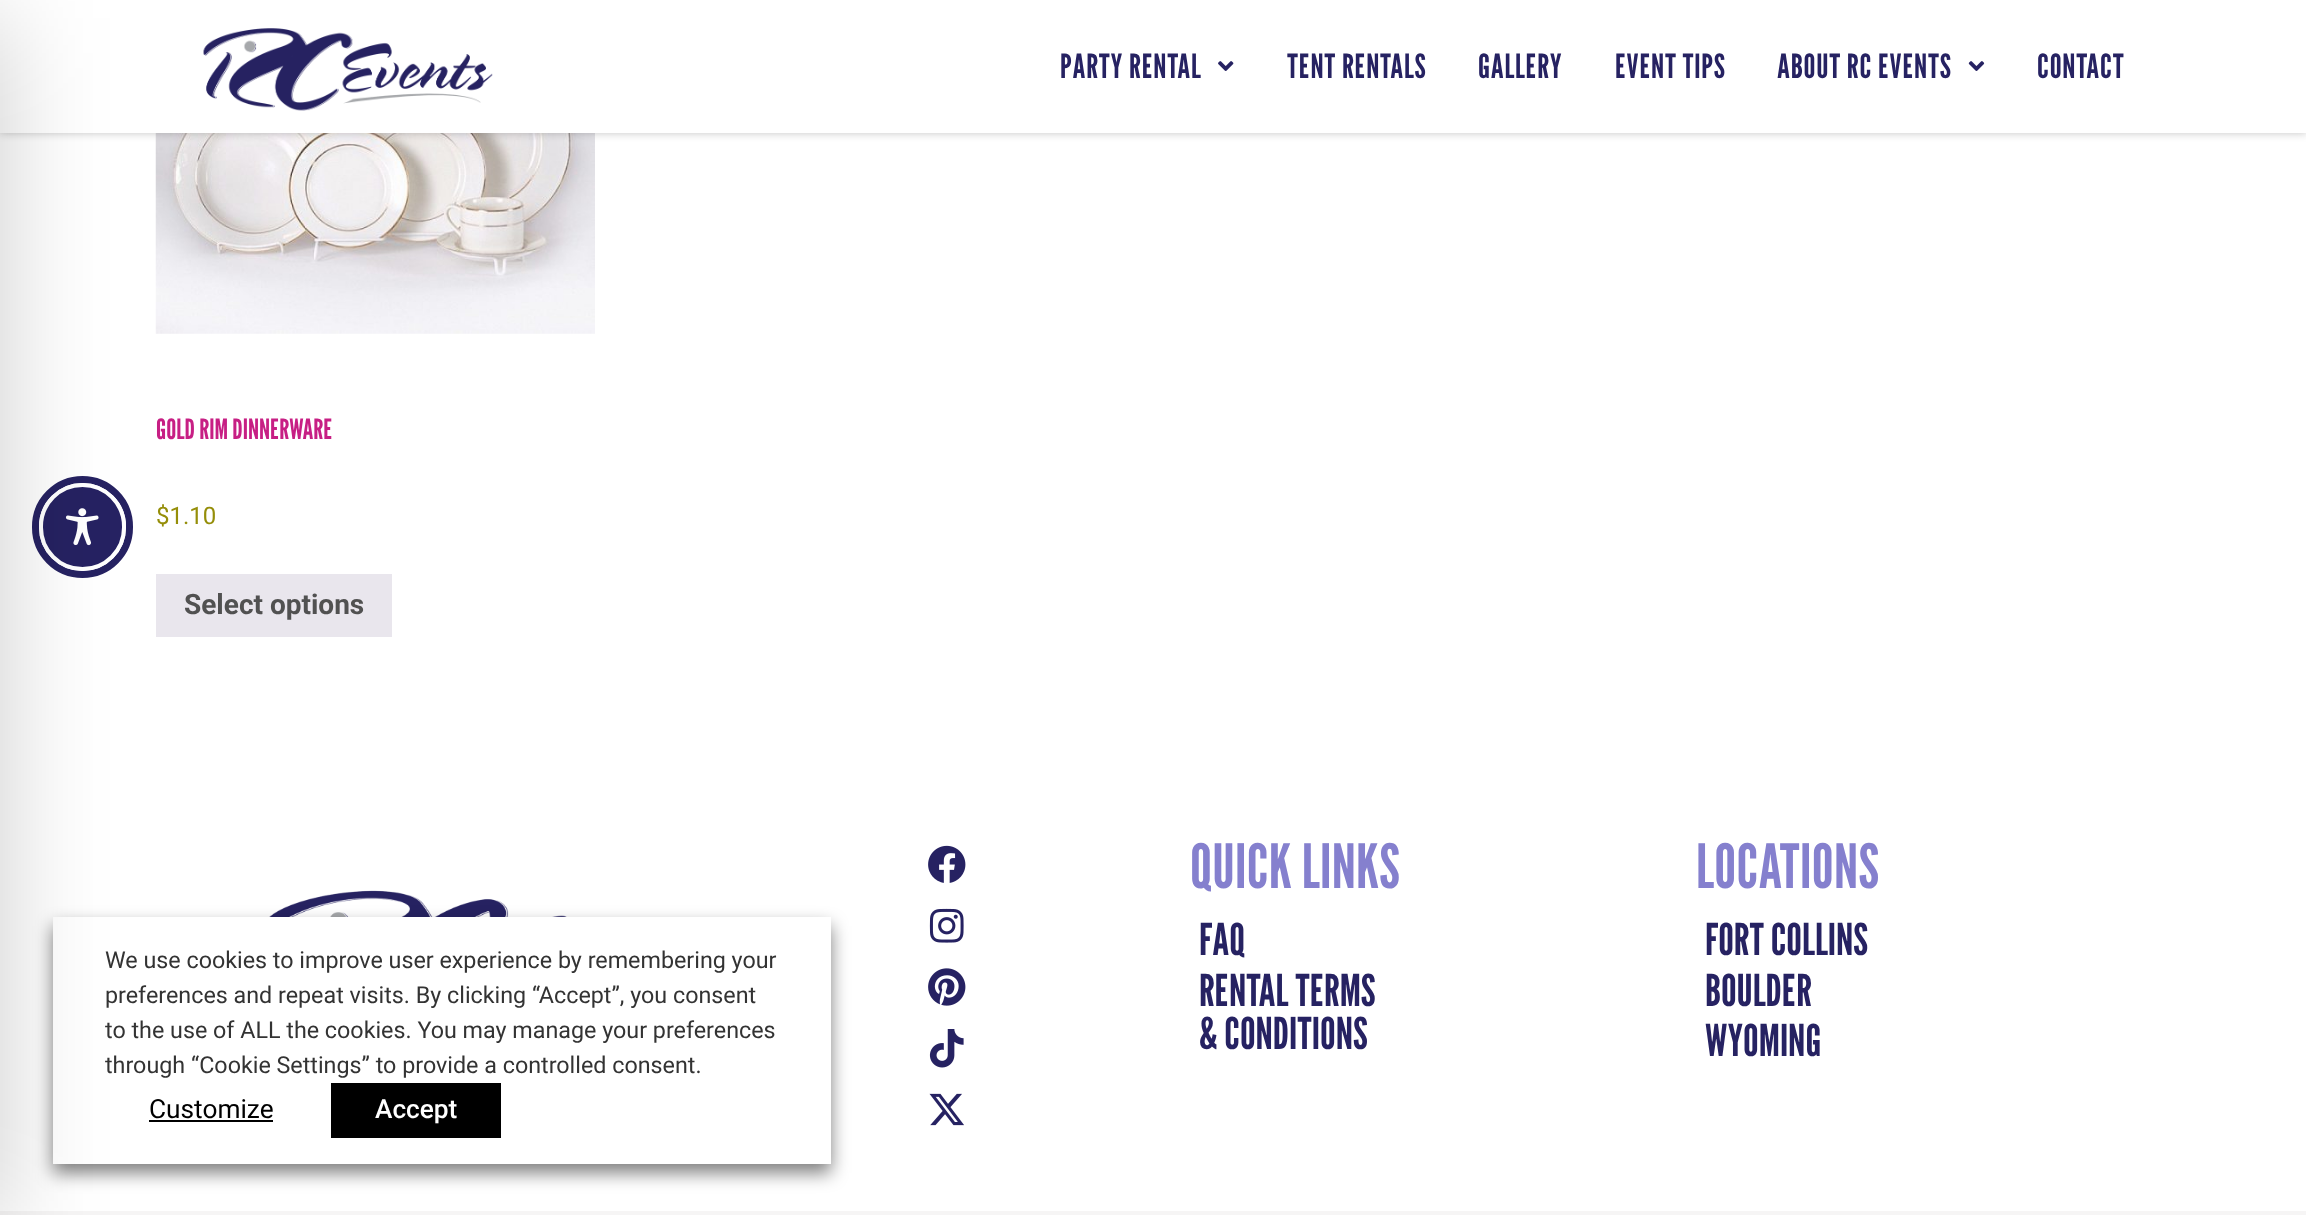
<svg xmlns="http://www.w3.org/2000/svg" width="2306" height="1215" viewBox="0 0 2306 1215">
  <style>
    .t1 { font: 33.25px League Gothic; letter-spacing: 0.75px; fill: #262262; }
    .t2 { font: 28px League Gothic; fill: #c71f84; }
    .t3 { font: 24px Roboto; fill: #958e09; }
    .t4 { font: bold 28px Roboto; fill: #515151; }
    .t5 { font: 23.3px Roboto; fill: #333; }
    .t6 { font: 26.25px Roboto; fill: #000; }
    .t7 { font: 500 26.25px Roboto; fill: #fff; }
    .t8 { font: 61px League Gothic; letter-spacing: 0.3px; fill: #8580ce; }
    .t9 { font: 43.75px League Gothic; fill: #262262; }
  </style>
  <rect width="100%" height="100%" fill="#fff"/>
  <image x="155" y="133" width="440" height="201" href="images/5.png"/>
  <rect x="0" y="0" width="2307" height="133" fill="#0000003b" filter="blur(4.5px)"/>
  <rect x="0" y="0" width="2306" height="133" fill="#fff"/>
  <rect x="35.5" y="479.5" width="94" height="95" rx="47" fill="none" stroke="#262262" stroke-width="7"/>
  <rect x="41" y="485" width="83" height="84" rx="41.5" fill="#262262" stroke="#fff" stroke-width="4"/>
  <image x="65" y="508" width="34" height="38" href="images/4.png"/>
  <rect x="156" y="574" width="236" height="63" fill="#e9e6ed"/>
  <image x="269" y="890" width="298" height="27" href="images/6.png"/>
  <rect x="53" y="926" width="778" height="247" fill="#00000080" filter="blur(9px)"/>
  <rect x="53" y="917" width="778" height="247" fill="#fff"/>
  <rect x="149" y="1120" width="124" height="2" fill="#000"/>
  <rect x="0" y="1211" width="2306" height="4" fill="#f6f5f5"/>
  <rect x="-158" y="18" width="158" height="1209" fill="#00000033" filter="blur(52.5px)"/>
  <image x="203" y="28" width="290" height="83" href="images/1.png"/>
  <text x="1060" y="78" class="t1">PARTY RENTAL</text>
  <image x="1218" y="61" width="16" height="10" href="images/2.png"/>
  <text x="1287" y="78" class="t1">TENT RENTALS</text>
  <text x="1478" y="78" class="t1">GALLERY</text>
  <text x="1615" y="78" class="t1">EVENT TIPS</text>
  <text x="1777" y="78" class="t1">ABOUT RC EVENTS</text>
  <image x="1968" y="61" width="17" height="10" href="images/3.png"/>
  <text x="2037" y="78" class="t1">CONTACT</text>
  <text x="156" y="439" class="t2">GOLD RIM DINNERWARE</text>
  <text x="156" y="524" class="t3">$1.10</text>
  <text x="184" y="614" class="t4">Select options</text>
  <text x="105" y="968" class="t5">We use cookies to improve user experience by remembering your</text>
  <text x="105" y="1003" class="t5">preferences and repeat visits. By clicking “Accept”, you consent</text>
  <text x="105" y="1038" class="t5">to the use of ALL the cookies. You may manage your preferences</text>
  <text x="105" y="1073" class="t5">through “Cookie Settings” to provide a controlled consent.</text>
  <text x="149" y="1118" class="t6">Customize</text>
  <rect x="331" y="1083" width="170" height="55" fill="#000"/>
  <text x="375" y="1118" class="t7">Accept</text>
  <image x="928" y="845" width="38" height="38" href="images/7.png"/>
  <image x="929" y="908" width="35" height="35" href="images/8.png"/>
  <image x="928" y="968" width="38" height="38" href="images/9.png"/>
  <image x="929" y="1029" width="35" height="39" href="images/10.png"/>
  <image x="929" y="1093" width="35" height="33" href="images/11.png"/>
  <text x="1190" y="888" class="t8">QUICK LINKS</text>
  <text x="1199" y="955" class="t9">FAQ</text>
  <text x="1199" y="1006" class="t9">RENTAL TERMS</text>
  <text x="1199" y="1049" class="t9">&amp; CONDITIONS</text>
  <text x="1696" y="888" class="t8">LOCATIONS</text>
  <text x="1705" y="955" class="t9">FORT COLLINS</text>
  <text x="1705" y="1006" class="t9">BOULDER</text>
  <text x="1705" y="1056" class="t9">WYOMING</text>
</svg>
